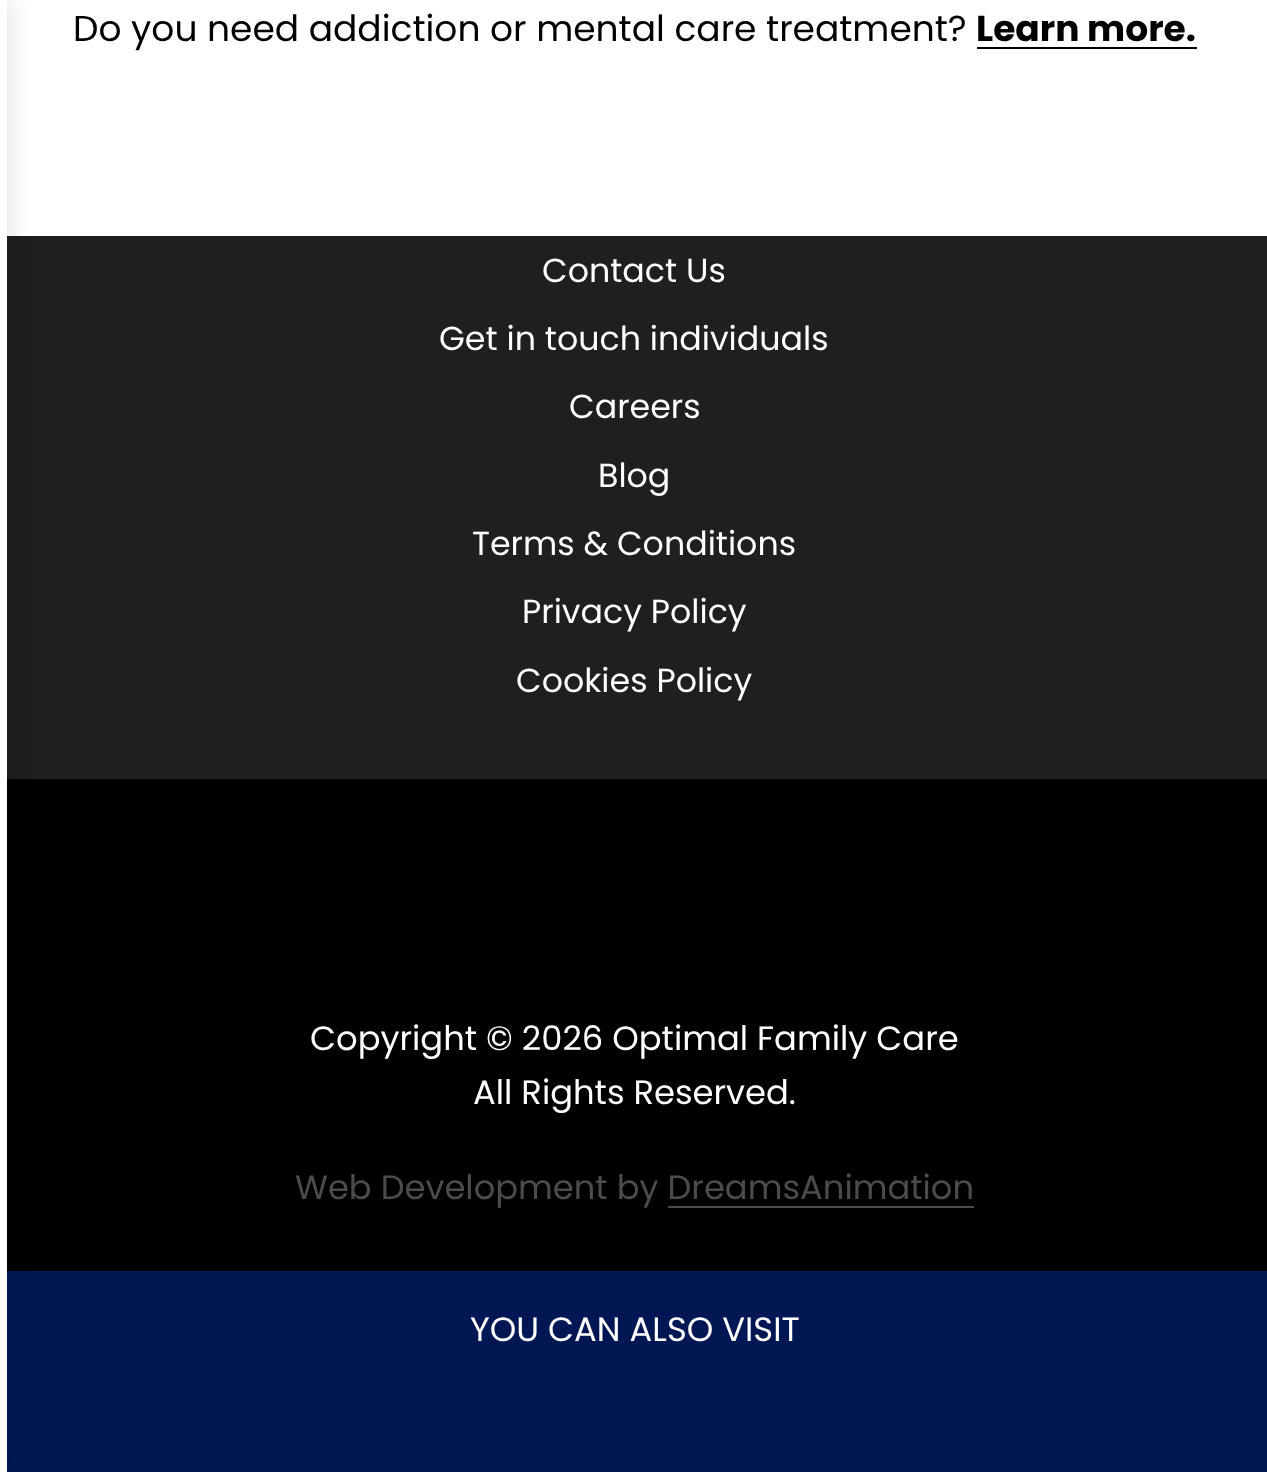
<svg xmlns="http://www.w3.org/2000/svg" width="1267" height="1472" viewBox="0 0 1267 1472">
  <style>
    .t1 { font: 36px Poppins; fill: #000; }
    .t2 { font: bold 36px Poppins; fill: #000; }
    .t3 { font: 33.25px Poppins; fill: #fff; }
    .t4 { font: 33.75px Poppins; fill: #fff; }
    .t5 { font: 33.75px Poppins; fill: #4d4c4c; }
  </style>
  <rect width="100%" height="100%" fill="#1d1f21"/>
  <rect x="7" y="0" width="1260" height="236" fill="#fff"/>
  <rect x="0" y="236" width="1267" height="3" fill="#1b1d1e"/>
  <rect x="7" y="779" width="1260" height="492" fill="#000"/>
  <rect x="7" y="1271" width="1260" height="201" fill="#011753"/>
  <rect x="-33" y="0" width="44" height="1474" fill="#0000001a" filter="blur(11px)"/>
  <rect x="0" y="0" width="7" height="1472" fill="#fff"/>
  <text x="73" y="41" class="t1">Do you need addiction or mental care treatment?</text>
  <text x="976" y="41" class="t2">Learn more.</text>
  <rect x="977" y="47" width="220" height="2" fill="#000"/>
  <text x="542" y="282" class="t3">Contact Us</text>
  <text x="439" y="350" class="t3">Get in touch individuals</text>
  <text x="569" y="418" class="t3">Careers</text>
  <text x="598" y="487" class="t3">Blog</text>
  <text x="472" y="555" class="t3">Terms &amp; Conditions</text>
  <text x="522" y="623" class="t3">Privacy Policy</text>
  <text x="516" y="692" class="t3">Cookies Policy</text>
  <text x="310" y="1050" class="t4">Copyright © 2026 Optimal Family Care</text>
  <text x="473" y="1104" class="t4">All Rights Reserved.</text>
  <text x="295" y="1199" class="t5">Web Development by DreamsAnimation</text>
  <rect x="668" y="1206" width="306" height="2" fill="#4d4c4c"/>
  <text x="470" y="1341" class="t4">YOU CAN ALSO VISIT</text>
</svg>
